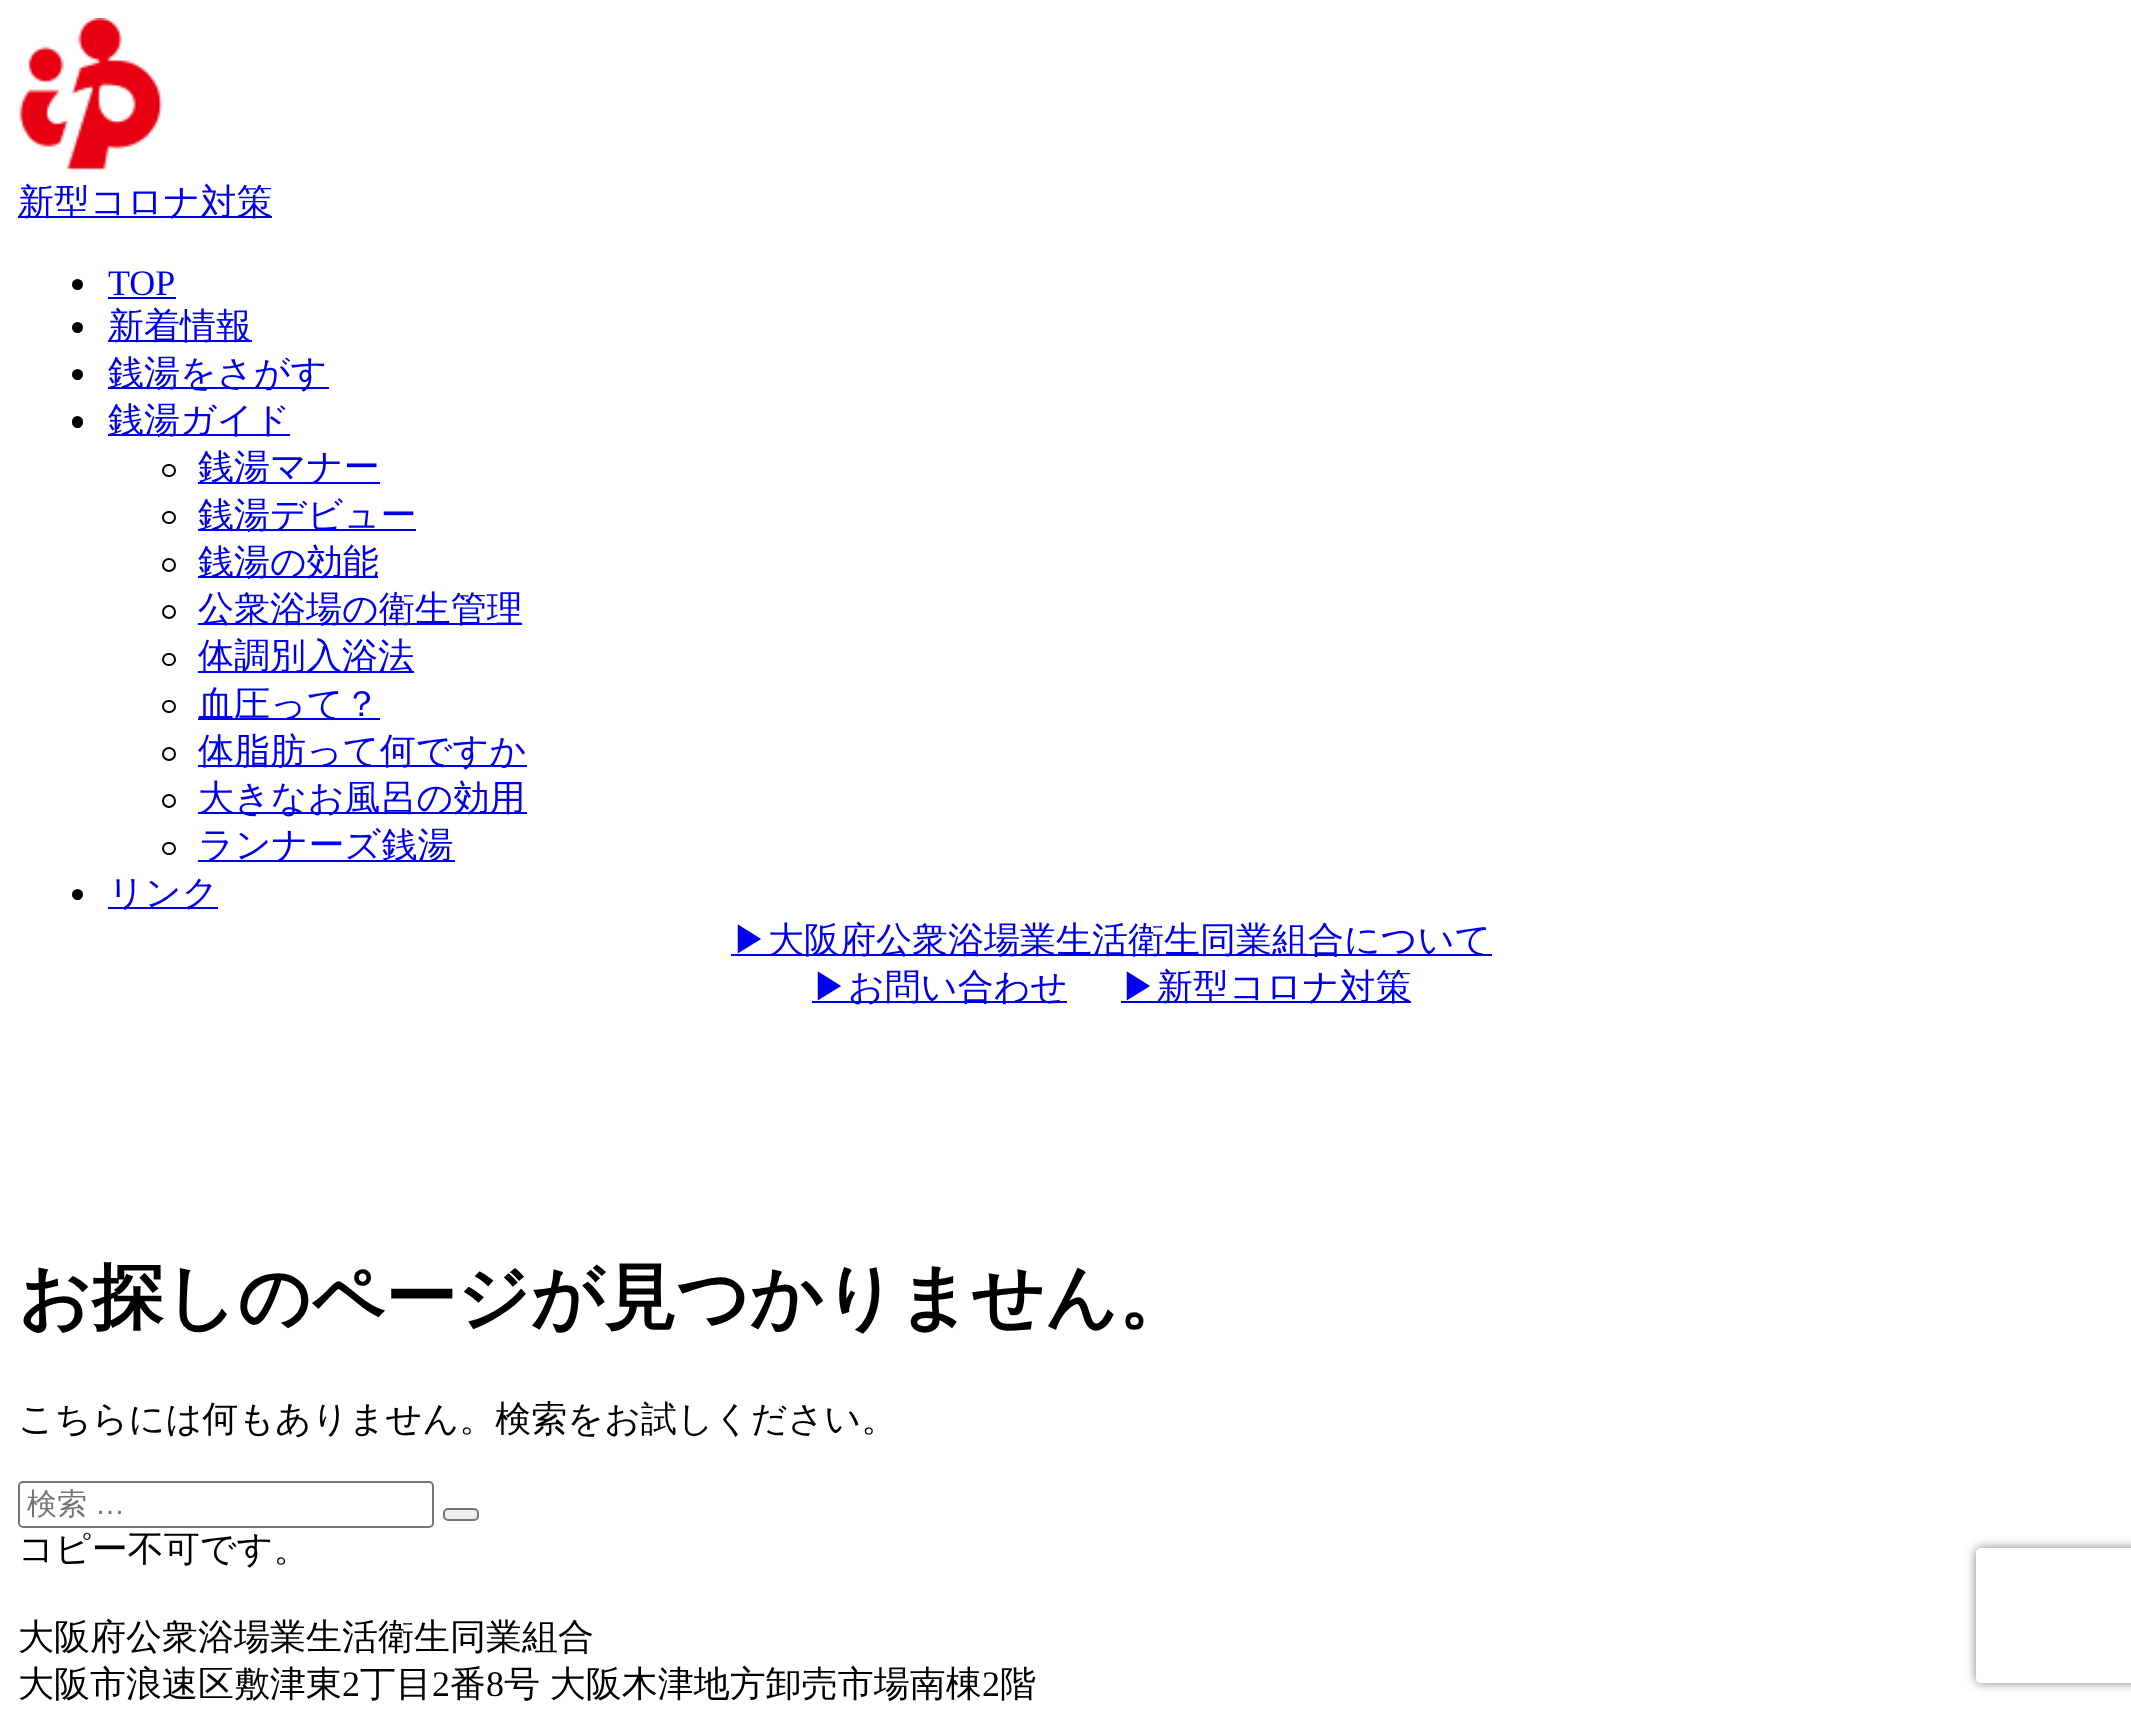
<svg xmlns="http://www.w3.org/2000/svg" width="2131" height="1713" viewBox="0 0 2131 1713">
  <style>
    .t1 { font: 500 36px WenQuanYi Zen Hei; fill: #00e; }
    .t2 { font: 36px Liberation Serif; fill: #00e; }
    .t3 { font: bold 72px WenQuanYi Zen Hei; fill: #000; }
    .t4 { font: 500 36px WenQuanYi Zen Hei; fill: #000; }
    .t5 { font: 500 30px WenQuanYi Zen Hei; fill: #757575; }
    .t6 { font: 30px Liberation Sans; fill: #757575; }
    .t7 { font: 36px Liberation Serif; fill: #000; }
  </style>
  <defs>
    <clipPath id="clip1"><path d="M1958 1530H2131V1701H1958ZM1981 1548H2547C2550 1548 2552 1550 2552 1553V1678C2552 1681 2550 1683 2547 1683H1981C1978 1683 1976 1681 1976 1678V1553C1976 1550 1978 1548 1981 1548Z" clip-rule="evenodd"/></clipPath>
  </defs>
  <rect width="100%" height="100%" fill="#fff"/>
  <image x="18" y="18" width="145" height="152" href="images/1.png"/>
  <rect x="18" y="216" width="254" height="2" fill="#00e"/>
  <text x="18" y="214" class="t1">新型コロナ対策</text>
  <circle cx="77.5" cy="284.5" r="5.5" fill="#000"/>
  <text x="108" y="295" class="t2">TOP</text>
  <rect x="108" y="297" width="68" height="2" fill="#00e"/>
  <circle cx="77.5" cy="327.5" r="5.5" fill="#000"/>
  <rect x="108" y="340" width="144" height="2" fill="#00e"/>
  <text x="108" y="338" class="t1">新着情報</text>
  <circle cx="77.5" cy="374.5" r="5.5" fill="#000"/>
  <rect x="108" y="387" width="221" height="2" fill="#00e"/>
  <text x="108" y="385" class="t1">銭湯をさがす</text>
  <rect x="72" y="416" width="11" height="12" rx="5.5" fill="#000"/>
  <rect x="108" y="434" width="182" height="2" fill="#00e"/>
  <text x="108" y="432" class="t1">銭湯ガイド</text>
  <rect x="163" y="465" width="12" height="11" rx="5.5" fill="none" stroke="#000" stroke-width="2"/>
  <rect x="198" y="482" width="182" height="2" fill="#00e"/>
  <text x="198" y="479" class="t1">銭湯マナー</text>
  <rect x="163" y="512" width="12" height="11" rx="5.5" fill="none" stroke="#000" stroke-width="2"/>
  <rect x="198" y="529" width="218" height="2" fill="#00e"/>
  <text x="198" y="527" class="t1">銭湯デビュー</text>
  <circle cx="169" cy="565" r="6" fill="none" stroke="#000" stroke-width="2"/>
  <rect x="198" y="576" width="180" height="2" fill="#00e"/>
  <text x="198" y="574" class="t1">銭湯の効能</text>
  <circle cx="169" cy="612" r="6" fill="none" stroke="#000" stroke-width="2"/>
  <rect x="198" y="623" width="324" height="2" fill="#00e"/>
  <text x="198" y="621" class="t1">公衆浴場の衛生管理</text>
  <rect x="163" y="654" width="12" height="11" rx="5.5" fill="none" stroke="#000" stroke-width="2"/>
  <rect x="198" y="671" width="216" height="2" fill="#00e"/>
  <text x="198" y="668" class="t1">体調別入浴法</text>
  <rect x="163" y="701" width="12" height="11" rx="5.5" fill="none" stroke="#000" stroke-width="2"/>
  <rect x="198" y="718" width="182" height="2" fill="#00e"/>
  <text x="198" y="716" class="t1">血圧って？</text>
  <circle cx="169" cy="754" r="6" fill="none" stroke="#000" stroke-width="2"/>
  <rect x="198" y="765" width="329" height="2" fill="#00e"/>
  <text x="198" y="763" class="t1">体脂肪って何ですか</text>
  <circle cx="169" cy="801" r="6" fill="none" stroke="#000" stroke-width="2"/>
  <rect x="198" y="812" width="329" height="2" fill="#00e"/>
  <text x="198" y="810" class="t1">大きなお風呂の効用</text>
  <rect x="163" y="843" width="12" height="11" rx="5.5" fill="none" stroke="#000" stroke-width="2"/>
  <rect x="198" y="860" width="257" height="2" fill="#00e"/>
  <text x="198" y="857" class="t1">ランナーズ銭湯</text>
  <circle cx="77.5" cy="894.5" r="5.5" fill="#000"/>
  <rect x="108" y="907" width="110" height="2" fill="#00e"/>
  <text x="108" y="905" class="t1">リンク</text>
  <rect x="731" y="954" width="761" height="2" fill="#00e"/>
  <text x="732" y="952" class="t1">▶︎大阪府公衆浴場業生活衛生同業組合について</text>
  <rect x="812" y="1001" width="255" height="2" fill="#00e"/>
  <text x="812" y="999" class="t1">▶︎お問い合わせ</text>
  <rect x="1121" y="1001" width="290" height="2" fill="#00e"/>
  <text x="1121" y="999" class="t1">▶︎新型コロナ対策</text>
  <text x="18" y="1322" class="t3">お探しのページが見つかりません。</text>
  <text x="18" y="1431" class="t4">こちらには何もありません。検索をお試しください。</text>
  <rect x="19" y="1482" width="414" height="45" rx="4" fill="none" stroke="#767676" stroke-width="2"/>
  <text x="27" y="1514" class="t5">検索</text>
  <text x="95" y="1514" class="t6">…</text>
  <rect x="444" y="1509" width="34" height="11" rx="4" fill="#efefef" stroke="#767676" stroke-width="2"/>
  <text x="18" y="1561" class="t4">コピー不可です。</text>
  <g clip-path="url(#clip1)">
    <rect x="1976" y="1548" width="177" height="135" rx="5" fill="#808080" filter="blur(5.5px)"/>
  </g>
  <text x="18" y="1649" class="t4">大阪府公衆浴場業生活衛生同業組合</text>
  <text x="18" y="1696" class="t4">大阪市浪速区敷津東</text>
  <text x="342" y="1696" class="t7">2</text>
  <text x="360" y="1696" class="t4">丁目</text>
  <text x="432" y="1696" class="t7">2</text>
  <text x="450" y="1696" class="t4">番</text>
  <text x="486" y="1696" class="t7">8</text>
  <text x="504" y="1696" word-spacing="-1" class="t4">号 大阪木津地方卸売市場南棟</text>
  <text x="982" y="1696" class="t7">2</text>
  <text x="1000" y="1696" class="t4">階</text>
</svg>
